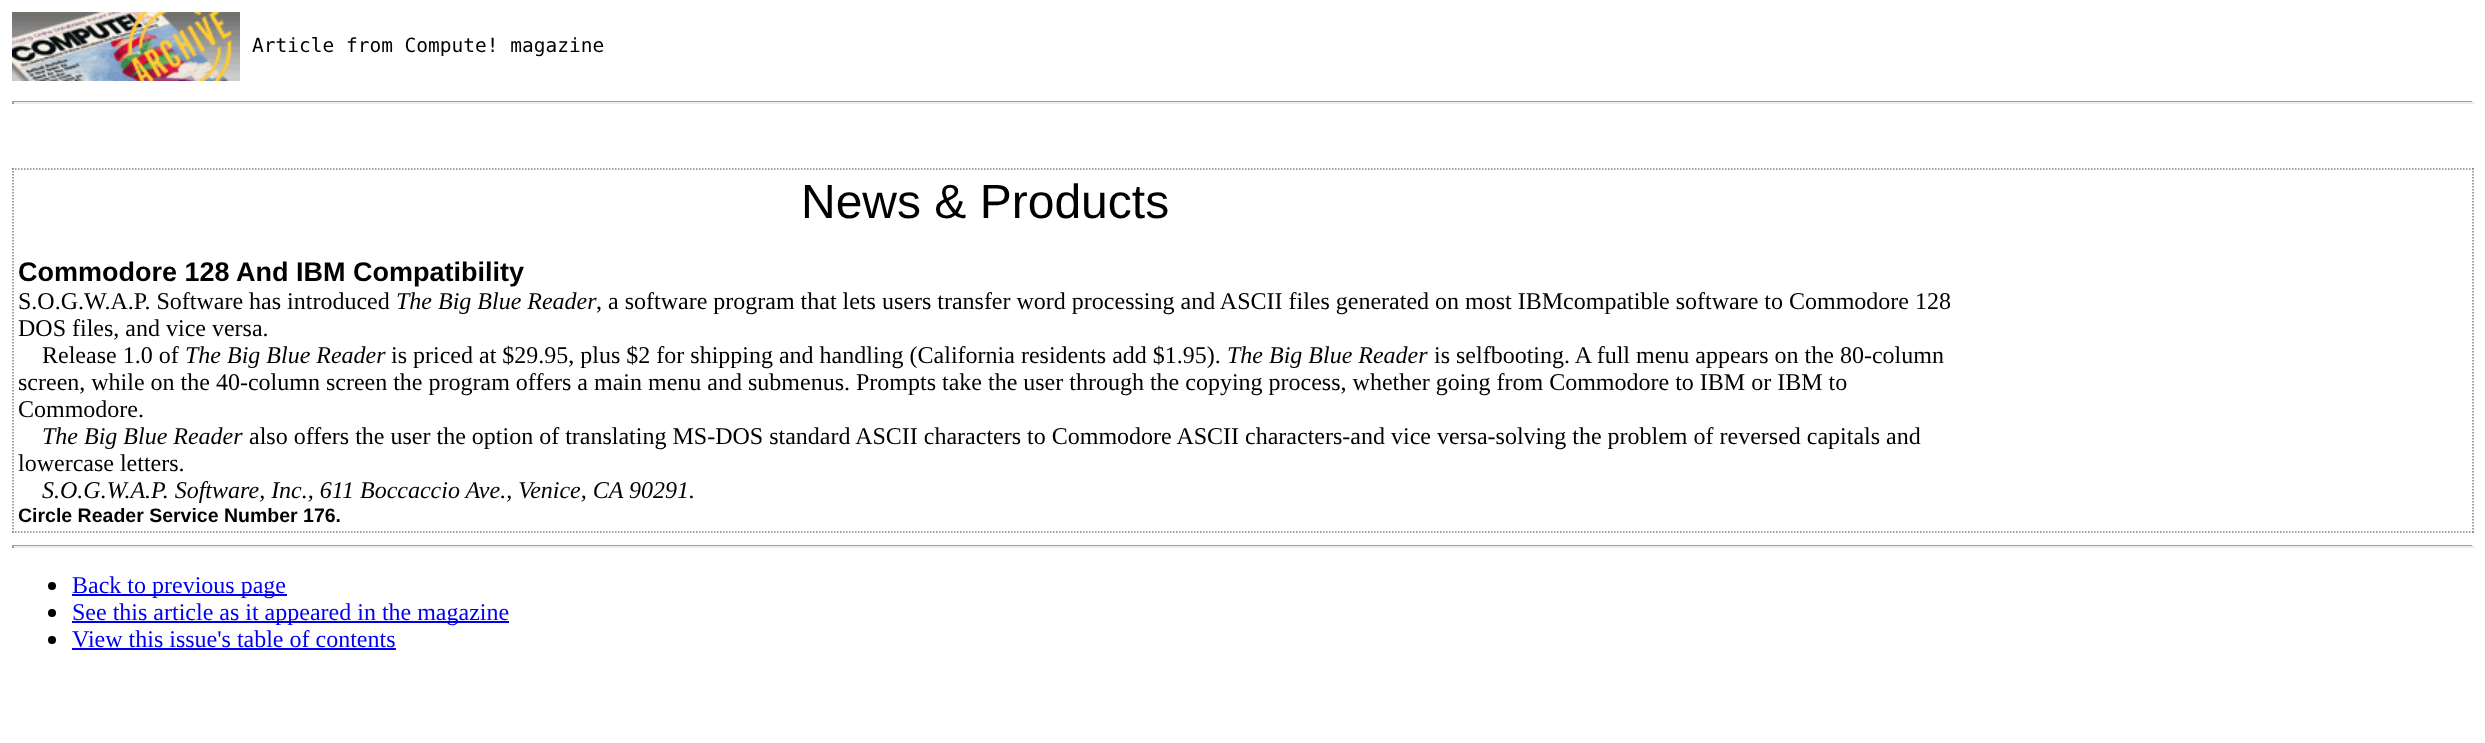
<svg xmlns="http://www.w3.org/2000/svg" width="2485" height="743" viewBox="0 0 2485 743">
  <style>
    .t1 { font: 19.5px DejaVu Sans Mono; fill: #000; }
    .t2 { font: 48px Liberation Sans; fill: #000; }
    .t3 { font: bold 27px Liberation Sans; fill: #000; }
    .t4 { font: 24px Liberation Serif; fill: #000; }
    .t5 { font: italic 24px Liberation Serif; fill: #000; }
    .t6 { font: bold 19.5px Liberation Sans; fill: #000; }
    .t7 { font: 24px Liberation Serif; fill: #00e; }
  </style>
  <rect width="100%" height="100%" fill="#fff"/>
  <image x="12" y="12" width="228" height="69" href="images/1.png"/>
  <text x="252" y="52" class="t1">Article from Compute! magazine</text>
  <rect x="12" y="101" width="2462" height="1" fill="#9f9f9f"/>
  <rect x="2472" y="101" width="2" height="3" fill="#eee"/>
  <rect x="12" y="102" width="2462" height="2" fill="#eee"/>
  <rect x="12" y="101" width="2" height="3" fill="#9f9f9f"/>
  <path d="M12 169H2473.5" fill="none" stroke="#808080" stroke-width="1.5" stroke-dasharray="1.5 1.5"/>
  <path d="M2473 168V532.5" fill="none" stroke="#808080" stroke-width="1.5" stroke-dasharray="1.5 1.5"/>
  <path d="M12 532H2473.5" fill="none" stroke="#808080" stroke-width="1.5" stroke-dasharray="1.5 1.5"/>
  <path d="M13 168V532.5" fill="none" stroke="#808080" stroke-width="1.5" stroke-dasharray="1.5 1.5"/>
  <text x="801" y="218" class="t2">News &amp; Products</text>
  <text x="18" y="281" class="t3">Commodore 128 And IBM Compatibility</text>
  <text x="18" y="309" class="t4">S.O.G.W.A.P. Software has introduced</text>
  <text x="396" y="309" class="t5">The Big Blue Reader</text>
  <text x="596" y="309" class="t4">, a software program that lets users transfer word processing and ASCII files generated on most IBMcompatible software to Commodore 128</text>
  <text x="18" y="336" class="t4">DOS files, and vice versa.</text>
  <text x="42" y="363" class="t4">Release 1.0 of</text>
  <text x="185" y="363" class="t5">The Big Blue Reader</text>
  <text x="391" y="363" class="t4">is priced at $29.95, plus $2 for shipping and handling (California residents add $1.95).</text>
  <text x="1227" y="363" class="t5">The Big Blue Reader</text>
  <text x="1434" y="363" class="t4">is selfbooting. A full menu appears on the 80-column</text>
  <text x="18" y="390" class="t4">screen, while on the 40-column screen the program offers a main menu and submenus. Prompts take the user through the copying process, whether going from Commodore to IBM or IBM to</text>
  <text x="18" y="417" class="t4">Commodore.</text>
  <text x="42" y="444" class="t5">The Big Blue Reader</text>
  <text x="249" y="444" class="t4">also offers the user the option of translating MS-DOS standard ASCII characters to Commodore ASCII characters-and vice versa-solving the problem of reversed capitals and</text>
  <text x="18" y="471" class="t4">lowercase letters.</text>
  <text x="42" y="498" class="t5">S.O.G.W.A.P. Software, Inc., 611 Boccaccio Ave., Venice, CA 90291.</text>
  <text x="18" y="522" class="t6">Circle Reader Service Number 176.</text>
  <rect x="12" y="545" width="2462" height="1" fill="#9f9f9f"/>
  <rect x="2472" y="545" width="2" height="3" fill="#eee"/>
  <rect x="12" y="546" width="2462" height="2" fill="#eee"/>
  <rect x="12" y="545" width="2" height="3" fill="#9f9f9f"/>
  <circle cx="52" cy="586" r="4" fill="#000"/>
  <rect x="72" y="594" width="215" height="2" fill="#00e"/>
  <text x="72" y="593" class="t7">Back to previous page</text>
  <circle cx="52" cy="613" r="4" fill="#000"/>
  <rect x="72" y="621" width="437" height="2" fill="#00e"/>
  <text x="72" y="620" class="t7">See this article as it appeared in the magazine</text>
  <circle cx="52" cy="640" r="4" fill="#000"/>
  <text x="72" y="647" class="t7">View this issue's table of contents</text>
  <rect x="72" y="648" width="324" height="2" fill="#00e"/>
</svg>
